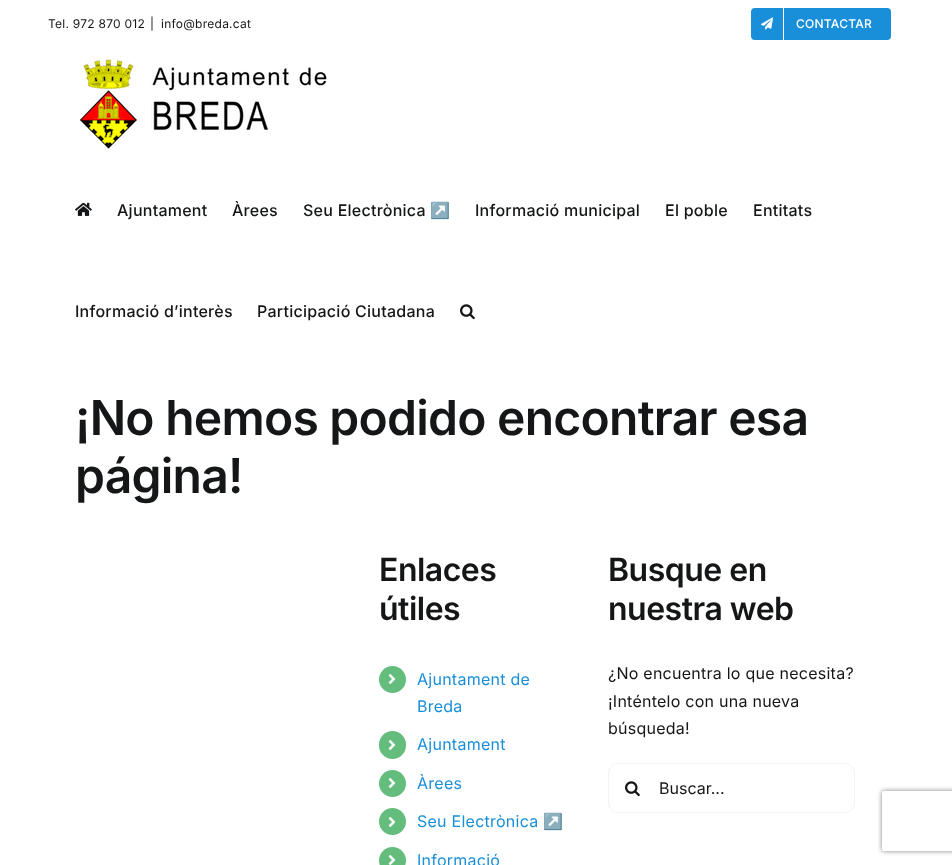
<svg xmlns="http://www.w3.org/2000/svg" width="952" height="865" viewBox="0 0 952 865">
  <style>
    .t1 { font: 12px Inter; letter-spacing: 0.25px; fill: #141617; }
    .t2 { font: 500 12px Inter; letter-spacing: 0.25px; fill: #fff; }
    .t3 { font: 500 16px Inter; letter-spacing: 0.25px; fill: #141617; }
    .t4 { font: 16px Noto Color Emoji; letter-spacing: 0.25px; fill: #141617; }
    .t5 { font: 600 48px Inter; letter-spacing: -0.75px; fill: #141617; }
    .t6 { font: 600 32px Inter; letter-spacing: -0.5px; fill: #141617; }
    .t7 { font: 16px Inter; letter-spacing: 0.25px; fill: #198fd9; }
    .t8 { font: 16px Noto Color Emoji; letter-spacing: 0.25px; fill: #198fd9; }
    .t9 { font: 16px Inter; letter-spacing: 0.25px; fill: #141617; }
    .t10 { font: 16px Inter; fill: #141617; }
  </style>
  <defs>
    <clipPath id="clip1"><path d="M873 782H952V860H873ZM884 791H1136C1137 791 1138 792 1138 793V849C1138 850 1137 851 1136 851H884C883 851 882 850 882 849V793C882 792 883 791 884 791Z" clip-rule="evenodd"/></clipPath>
  </defs>
  <rect width="100%" height="100%" fill="#fff"/>
  <text x="48" y="28" class="t1">Tel. 972 870 012</text>
  <text x="150" y="28" class="t1">|</text>
  <text x="161" y="28" class="t1">info@breda.cat</text>
  <rect x="751" y="8" width="140" height="32" rx="4" fill="#198fd9"/>
  <rect x="783" y="8" width="1" height="32" fill="#fff"/>
  <image x="761" y="17" width="12" height="13" href="images/1.png"/>
  <text x="796" y="28" class="t2">CONTACTAR</text>
  <image x="79" y="59" width="248" height="90" href="images/2.png"/>
  <image x="75" y="202" width="17" height="14" href="images/3.png"/>
  <text x="117" y="216" class="t3">Ajuntament</text>
  <text x="232" y="216" class="t3">Àrees</text>
  <text x="303" y="216" class="t3">Seu Electrònica</text>
  <text x="430" y="216" class="t4">↗️</text>
  <text x="475" y="216" class="t3">Informació municipal</text>
  <text x="665" y="216" class="t3">El poble</text>
  <text x="753" y="216" class="t3">Entitats</text>
  <text x="75" y="317" class="t3">Informació d’interès</text>
  <text x="257" y="317" class="t3">Participació Ciutadana</text>
  <image x="460" y="304" width="15" height="16" href="images/4.png"/>
  <text x="75" y="435" class="t5">¡No hemos podido encontrar esa</text>
  <text x="75" y="493" class="t5">página!</text>
  <text x="379" y="581" class="t6">Enlaces</text>
  <text x="379" y="620" class="t6">útiles</text>
  <circle cx="392.5" cy="679.5" r="13.5" fill="#65bd7d"/>
  <image x="388" y="674" width="8" height="10" href="images/5.png"/>
  <text x="417" y="685" class="t7">Ajuntament de</text>
  <text x="417" y="712" class="t7">Breda</text>
  <rect x="379" y="731" width="27" height="28" rx="13.5" fill="#65bd7d"/>
  <image x="388" y="740" width="8" height="10" href="images/5.png"/>
  <text x="417" y="750" class="t7">Ajuntament</text>
  <circle cx="392.5" cy="783.5" r="13.5" fill="#65bd7d"/>
  <image x="388" y="778" width="8" height="10" href="images/5.png"/>
  <text x="417" y="789" class="t7">Àrees</text>
  <circle cx="392.5" cy="821.5" r="13.5" fill="#65bd7d"/>
  <image x="388" y="817" width="8" height="10" href="images/5.png"/>
  <text x="417" y="827" class="t7">Seu Electrònica</text>
  <text x="543" y="827" class="t8">↗️</text>
  <circle cx="392.5" cy="860.5" r="13.5" fill="#65bd7d"/>
  <image x="388" y="855" width="8" height="10" href="images/5.png"/>
  <text x="417" y="866" class="t7">Informació</text>
  <text x="608" y="581" class="t6">Busque en</text>
  <text x="608" y="620" class="t6">nuestra web</text>
  <text x="608" y="679" class="t9">¿No encuentra lo que necesita?</text>
  <text x="608" y="707" class="t9">¡Inténtelo con una nueva</text>
  <text x="608" y="734" class="t9">búsqueda!</text>
  <rect x="608.5" y="763.5" width="246" height="49" rx="9.5" fill="none" stroke="#f2f3f5"/>
  <image x="625" y="781" width="15" height="16" href="images/4.png"/>
  <text x="659" y="794" class="t10">Buscar...</text>
  <g clip-path="url(#clip1)">
    <rect x="882" y="791" width="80" height="60" rx="2" fill="#808080" filter="blur(2.5px)"/>
  </g>
</svg>
